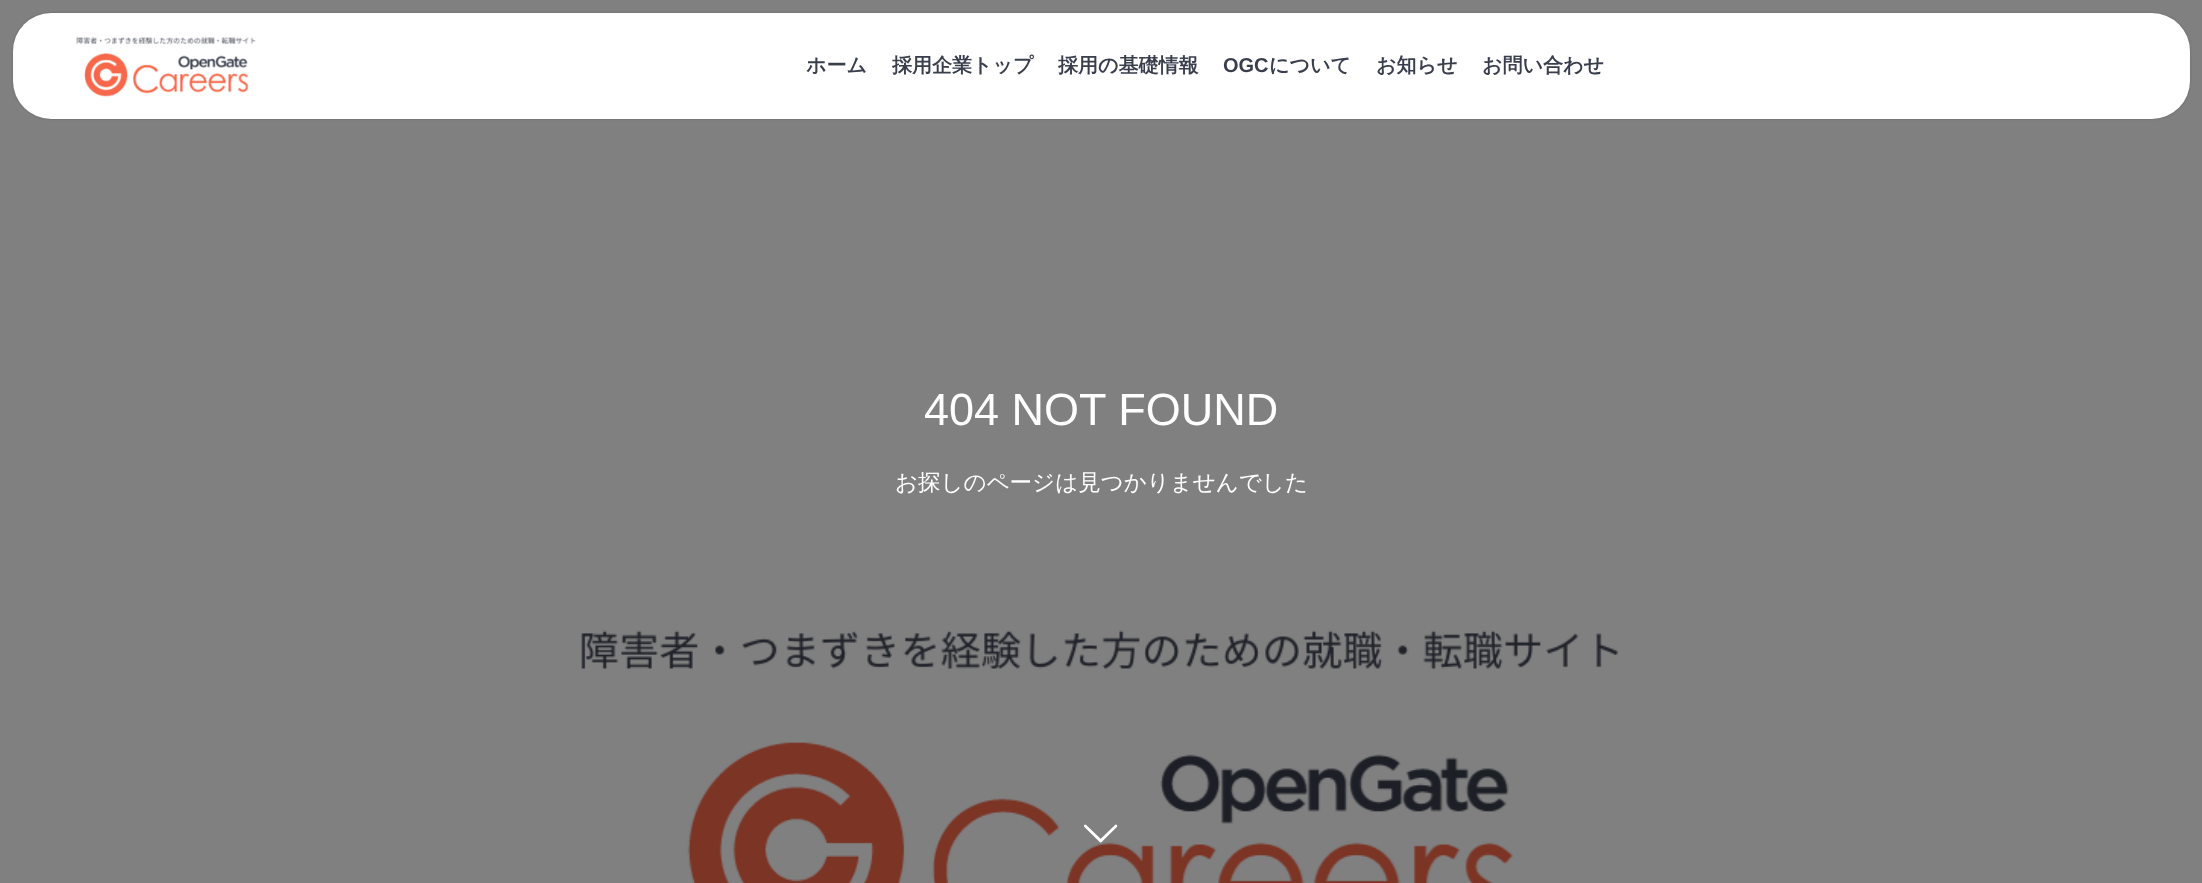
<svg xmlns="http://www.w3.org/2000/svg" width="2202" height="883" viewBox="0 0 2202 883">
  <style>
    .t1 { font: bold 20px WenQuanYi Zen Hei; fill: #393e4d; }
    .t2 { font: bold 20px Liberation Sans; fill: #393e4d; }
    .t3 { font: 45px Liberation Sans; fill: #fff; }
    .t4 { font: 500 22.5px WenQuanYi Zen Hei; fill: #fff; }
  </style>
  <rect width="100%" height="100%" fill="#fff"/>
  <image x="0" y="0" width="2202" height="883" href="images/2.png"/>
  <rect x="13" y="13" width="2177" height="106" rx="38" fill="#393e4d66" filter="blur(1px)"/>
  <rect x="13" y="13" width="2177" height="106" rx="38" fill="#fff"/>
  <image x="76" y="37" width="180" height="60" href="images/1.png"/>
  <text x="806" y="72" class="t1">ホーム</text>
  <text x="892" y="72" class="t1">採用企業トップ</text>
  <text x="1058" y="72" class="t1">採用の基礎情報</text>
  <text x="1223" y="72" class="t2">OGC</text>
  <text x="1269" y="72" class="t1">について</text>
  <text x="1376" y="72" class="t1">お知らせ</text>
  <text x="1482" y="72" class="t1">お問い合わせ</text>
  <text x="924" y="425" class="t3">404 NOT FOUND</text>
  <text x="895" y="490" class="t4">お探しのページは見つかりませんでした</text>
  <image x="1084" y="824" width="34" height="19" href="images/3.png"/>
</svg>
